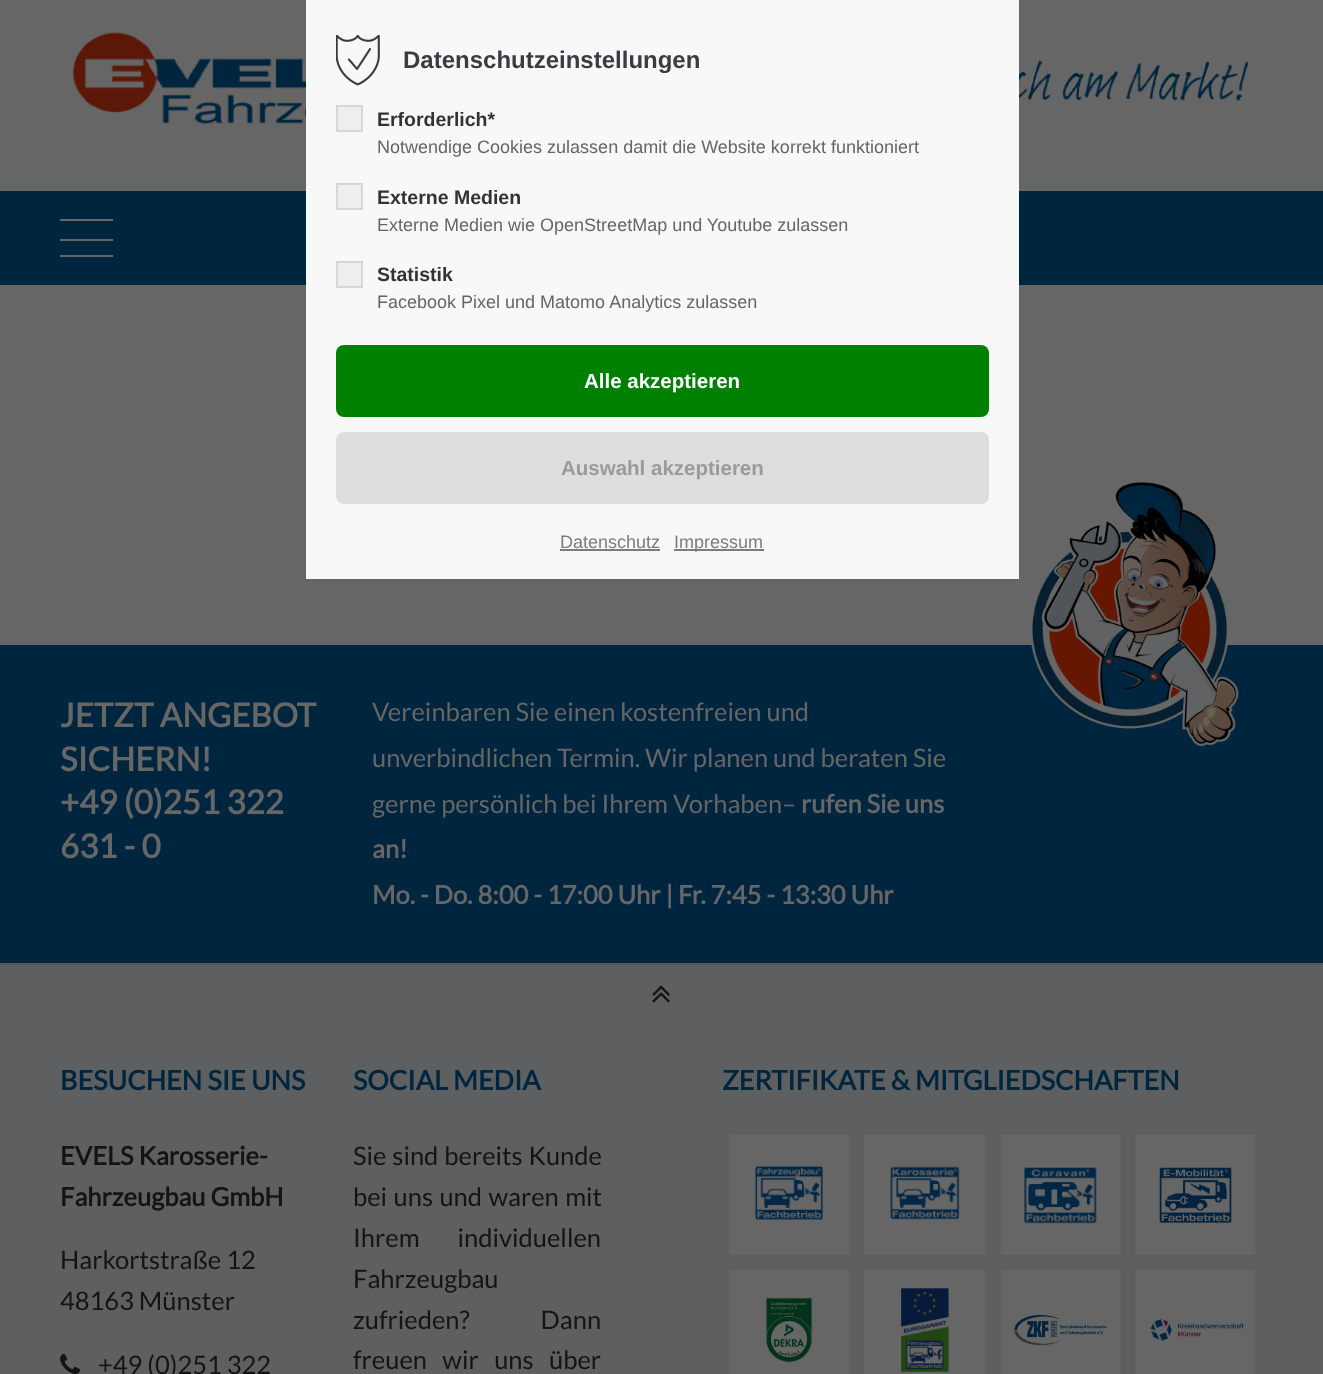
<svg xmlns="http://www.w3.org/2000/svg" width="1323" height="1374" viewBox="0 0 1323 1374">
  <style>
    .t1 { font: bold 24px Liberation Sans; fill: #3b3c42; }
    .t2 { font: bold 19.5px Liberation Sans; fill: #333; }
    .t3 { font: 18px Liberation Sans; fill: #666; }
    .t4 { font: bold 20.5px Liberation Sans; fill: #fff; }
    .t5 { font: bold 20.5px Liberation Sans; fill: #9a9a9a; }
    .t6 { font: 18px Liberation Sans; fill: #7c7c7c; }
    .t7 { font: bold 33px Lato; fill: #666; }
    .t8 { font: 25.5px Lato; fill: #666; }
    .t9 { font: bold 25.5px Lato; fill: #666; }
    .t10 { font: bold 27px Lato; fill: #00253e; }
    .t11 { font: bold 25.5px Lato; fill: #141414; }
    .t12 { font: 25.5px Lato; fill: #141414; }
  </style>
  <rect width="100%" height="100%" fill="#666"/>
  <rect x="0" y="191" width="1323" height="94" fill="#00253e"/>
  <rect x="306" y="0" width="713" height="579" fill="#f8f8f8"/>
  <image x="336" y="35" width="44" height="51" href="images/1.png"/>
  <text x="403" y="68" class="t1">Datenschutzeinstellungen</text>
  <rect x="337" y="106" width="25" height="25" fill="#eee" stroke="#d6d6d6" stroke-width="2"/>
  <text x="377" y="126" class="t2">Erforderlich*</text>
  <text x="377" y="153" class="t3">Notwendige Cookies zulassen damit die Website korrekt funktioniert</text>
  <rect x="337" y="184" width="25" height="25" fill="#eee" stroke="#d6d6d6" stroke-width="2"/>
  <text x="377" y="204" class="t2">Externe Medien</text>
  <text x="377" y="231" class="t3">Externe Medien wie OpenStreetMap und Youtube zulassen</text>
  <rect x="337" y="262" width="25" height="25" fill="#eee" stroke="#d6d6d6" stroke-width="2"/>
  <text x="377" y="281" class="t2">Statistik</text>
  <text x="377" y="308" class="t3">Facebook Pixel und Matomo Analytics zulassen</text>
  <rect x="336" y="345" width="653" height="72" rx="8" fill="#008000"/>
  <text x="584" y="388" class="t4">Alle akzeptieren</text>
  <rect x="336" y="432" width="653" height="72" rx="8" fill="#ddd"/>
  <text x="561" y="475" class="t5">Auswahl akzeptieren</text>
  <text x="560" y="548" class="t6">Datenschutz</text>
  <rect x="560" y="549" width="100" height="2" fill="#7c7c7c"/>
  <rect x="674" y="549" width="90" height="2" fill="#7c7c7c"/>
  <text x="674" y="548" class="t6">Impressum</text>
  <image x="72" y="32" width="234" height="100" href="images/2.png"/>
  <image x="1019" y="60" width="229" height="41" href="images/3.png"/>
  <rect x="60" y="239" width="53" height="2" fill="#666"/>
  <rect x="60" y="219" width="53" height="2" fill="#666"/>
  <rect x="60" y="255" width="53" height="2" fill="#666"/>
  <rect x="0" y="645" width="1323" height="318" fill="#00253e"/>
  <image x="1031" y="482" width="208" height="265" href="images/4.png"/>
  <text x="60" y="727" class="t7">JETZT ANGEBOT</text>
  <text x="60" y="771" class="t7">SICHERN!</text>
  <text x="60" y="814" class="t7">+49 (0)251 322</text>
  <text x="60" y="858" class="t7">631 - 0</text>
  <text x="372" y="721" class="t8">Vereinbaren Sie einen kostenfreien und</text>
  <text x="372" y="767" class="t8">unverbindlichen Termin. Wir planen und beraten Sie</text>
  <text x="372" y="813" class="t8">gerne persönlich bei Ihrem Vorhaben–</text>
  <text x="801" y="813" class="t9">rufen Sie uns</text>
  <text x="372" y="858" class="t9">an!</text>
  <text x="372" y="904" class="t9">Mo. - Do. 8:00 - 17:00 Uhr | Fr. 7:45 - 13:30 Uhr</text>
  <rect x="0" y="965" width="1323" height="409" fill="#5e5f60"/>
  <rect x="0" y="963" width="1323" height="2" fill="#545557"/>
  <image x="652" y="985" width="18" height="18" href="images/5.png"/>
  <text x="60" y="1090" class="t10">BESUCHEN SIE UNS</text>
  <text x="60" y="1165" class="t11">EVELS Karosserie-</text>
  <text x="60" y="1206" class="t11">Fahrzeugbau GmbH</text>
  <text x="60" y="1269" class="t12">Harkortstraße 12</text>
  <text x="60" y="1310" class="t12">48163 Münster</text>
  <image x="60" y="1354" width="20" height="20" href="images/6.png"/>
  <text x="98" y="1374" class="t12">+49 (0)251 322</text>
  <text x="353" y="1090" class="t10">SOCIAL MEDIA</text>
  <text x="353" y="1165" word-spacing="1" class="t12">Sie sind bereits Kunde</text>
  <text x="353" y="1206" word-spacing="1.5" class="t12">bei uns und waren mit</text>
  <text x="353" y="1247" word-spacing="33" class="t12">Ihrem individuellen</text>
  <text x="353" y="1288" class="t12">Fahrzeugbau</text>
  <text x="353" y="1329" word-spacing="66" class="t12">zufrieden? Dann</text>
  <text x="353" y="1369" word-spacing="10.5" class="t12">freuen wir uns über</text>
  <text x="722" y="1090" class="t10">ZERTIFIKATE &amp; MITGLIEDSCHAFTEN</text>
  <image x="729" y="1135" width="120" height="120" href="images/7.png"/>
  <image x="864" y="1135" width="122" height="120" href="images/8.png"/>
  <image x="1000" y="1135" width="121" height="120" href="images/9.png"/>
  <image x="1135" y="1135" width="121" height="120" href="images/10.png"/>
  <image x="729" y="1270" width="120" height="104" href="images/11.png"/>
  <image x="864" y="1270" width="122" height="104" href="images/12.png"/>
  <image x="1000" y="1270" width="121" height="104" href="images/13.png"/>
  <image x="1135" y="1270" width="121" height="104" href="images/14.png"/>
</svg>
